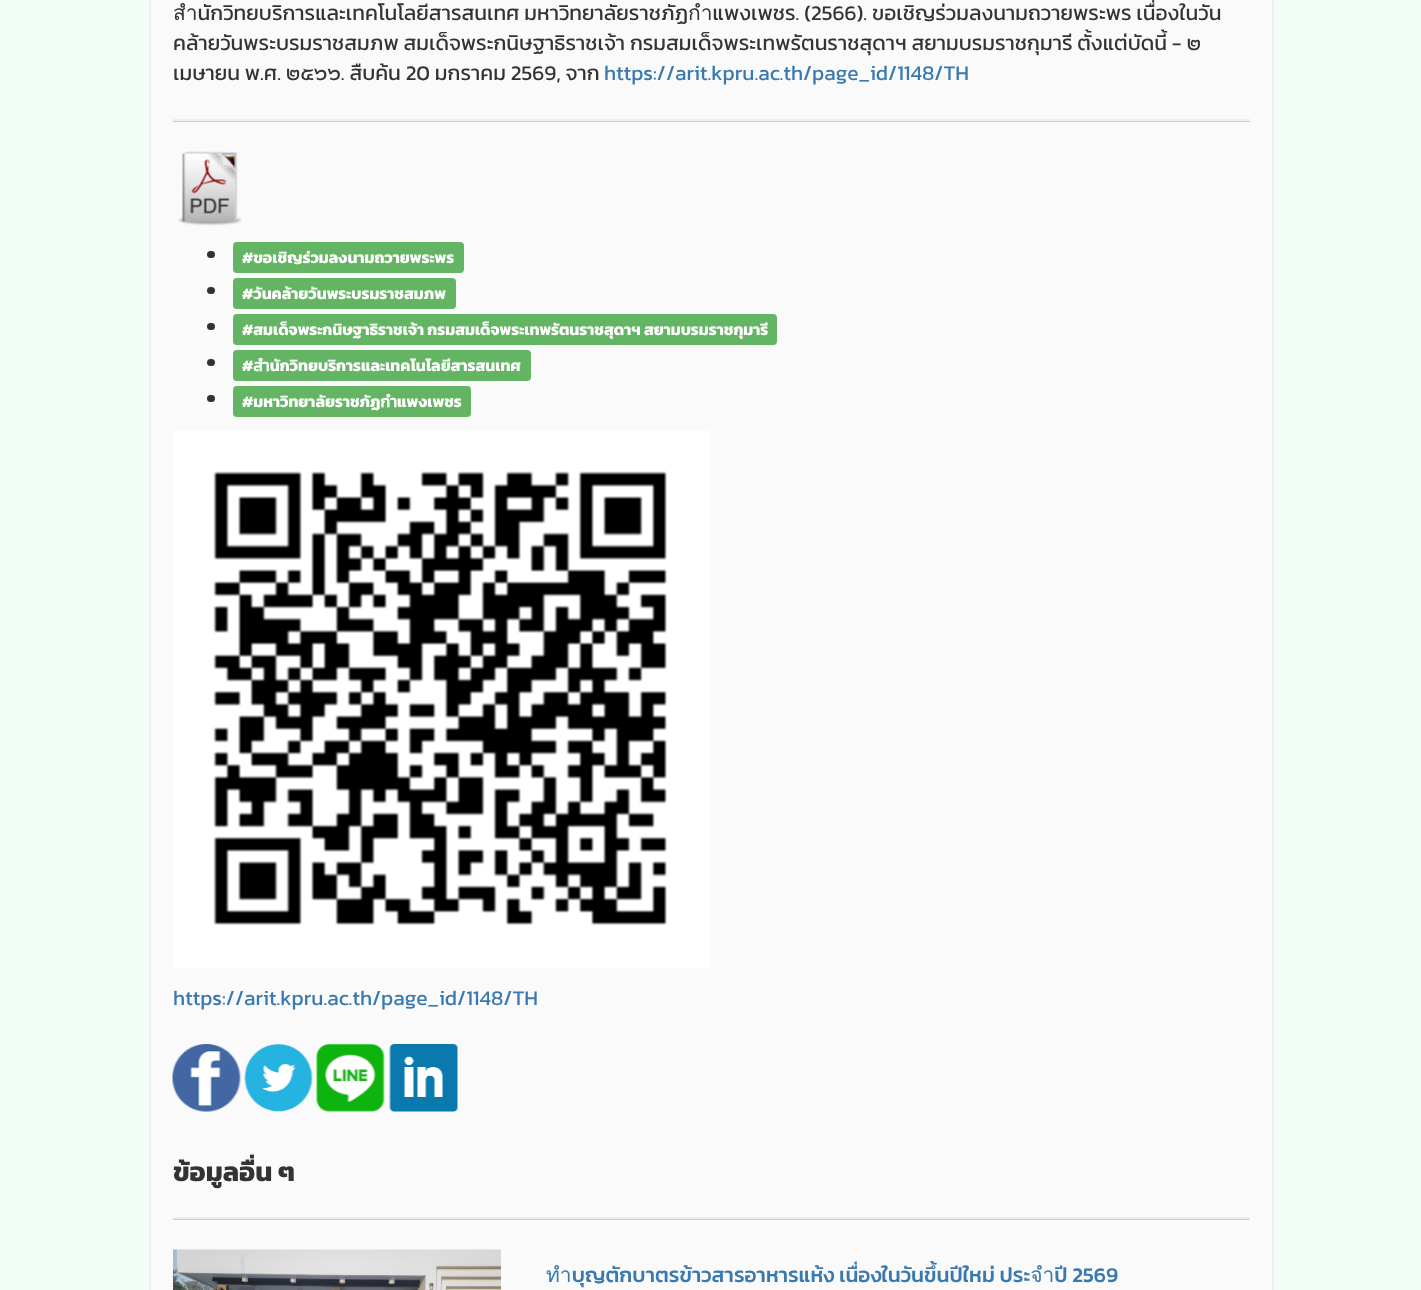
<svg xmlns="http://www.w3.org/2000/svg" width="1421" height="1290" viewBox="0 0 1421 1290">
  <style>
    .t1 { font: 21px Kanit; fill: #333; }
    .t2 { font: 21px Kanit; fill: #3979b0; }
    .t3 { font: bold 15.75px Kanit; fill: #fff; }
    .t4 { font: bold 27px Kanit; fill: #333; }
    .t5 { font: 500 21px Kanit; fill: #3979b0; }
  </style>
  <rect width="100%" height="100%" fill="#f3fdf7"/>
  <rect x="151" y="0" width="1121" height="1290" fill="#fafafa"/>
  <rect x="1272" y="0" width="2" height="1290" fill="#e5f5eb"/>
  <rect x="149" y="0" width="2" height="1290" fill="#e5f5eb"/>
  <text x="173" y="20" class="t1">สำนักวิทยบริการและเทคโนโลยีสารสนเทศ มหาวิทยาลัยราชภัฏกำแพงเพชร. (2566). ขอเชิญร่วมลงนามถวายพระพร เนื่องในวัน</text>
  <text x="173" y="50" class="t1">คล้ายวันพระบรมราชสมภพ สมเด็จพระกนิษฐาธิราชเจ้า กรมสมเด็จพระเทพรัตนราชสุดาฯ สยามบรมราชกุมารี ตั้งแต่บัดนี้ - ๒</text>
  <text x="173" y="80" class="t1">เมษายน พ.ศ. ๒๕๖๖. สืบค้น 20 มกราคม 2569, จาก</text>
  <text x="604" y="80" class="t2">https://arit.kpru.ac.th/page_id/1148/TH</text>
  <rect x="173" y="121" width="1077" height="1" fill="#ccc"/>
  <rect x="173" y="119" width="1077" height="2" fill="#eee"/>
  <image x="178" y="151" width="64" height="75" href="images/1.png"/>
  <rect x="207" y="251" width="8" height="7" rx="3.5" fill="#333"/>
  <rect x="233" y="242" width="231" height="31" rx="4" fill="#63b563"/>
  <text x="242" y="263" class="t3">#ขอเชิญร่วมลงนามถวายพระพร</text>
  <rect x="207" y="287" width="8" height="7" rx="3.5" fill="#333"/>
  <rect x="233" y="278" width="223" height="31" rx="4" fill="#63b563"/>
  <text x="242" y="299" class="t3">#วันคล้ายวันพระบรมราชสมภพ</text>
  <rect x="207" y="323" width="8" height="7" rx="3.5" fill="#333"/>
  <rect x="233" y="314" width="544" height="31" rx="4" fill="#63b563"/>
  <text x="242" y="335" class="t3">#สมเด็จพระกนิษฐาธิราชเจ้า กรมสมเด็จพระเทพรัตนราชสุดาฯ สยามบรมราชกุมารี</text>
  <rect x="207" y="359" width="8" height="7" rx="3.5" fill="#333"/>
  <rect x="233" y="350" width="298" height="31" rx="4" fill="#63b563"/>
  <text x="242" y="371" class="t3">#สำนักวิทยบริการและเทคโนโลยีสารสนเทศ</text>
  <rect x="207" y="395" width="8" height="7" rx="3.5" fill="#333"/>
  <rect x="233" y="386" width="238" height="31" rx="4" fill="#63b563"/>
  <text x="242" y="407" class="t3">#มหาวิทยาลัยราชภัฏกำแพงเพชร</text>
  <image x="173" y="431" width="537" height="537" href="images/2.png"/>
  <text x="173" y="1005" class="t2">https://arit.kpru.ac.th/page_id/1148/TH</text>
  <image x="172" y="1044" width="69" height="68" href="images/3.png"/>
  <image x="244" y="1044" width="69" height="68" href="images/4.png"/>
  <image x="316" y="1044" width="69" height="68" href="images/5.png"/>
  <image x="389" y="1044" width="69" height="68" href="images/6.png"/>
  <text x="173" y="1181" class="t4">ข้อมูลอื่น ๆ</text>
  <rect x="173" y="1219" width="1077" height="1" fill="#ccc"/>
  <rect x="173" y="1217" width="1077" height="2" fill="#eee"/>
  <image x="173" y="1249" width="328" height="41" href="images/7.png"/>
  <text x="546" y="1282" class="t5">ทำบุญตักบาตรข้าวสารอาหารแห้ง เนื่องในวันขึ้นปีใหม่ ประจำปี 2569</text>
</svg>
